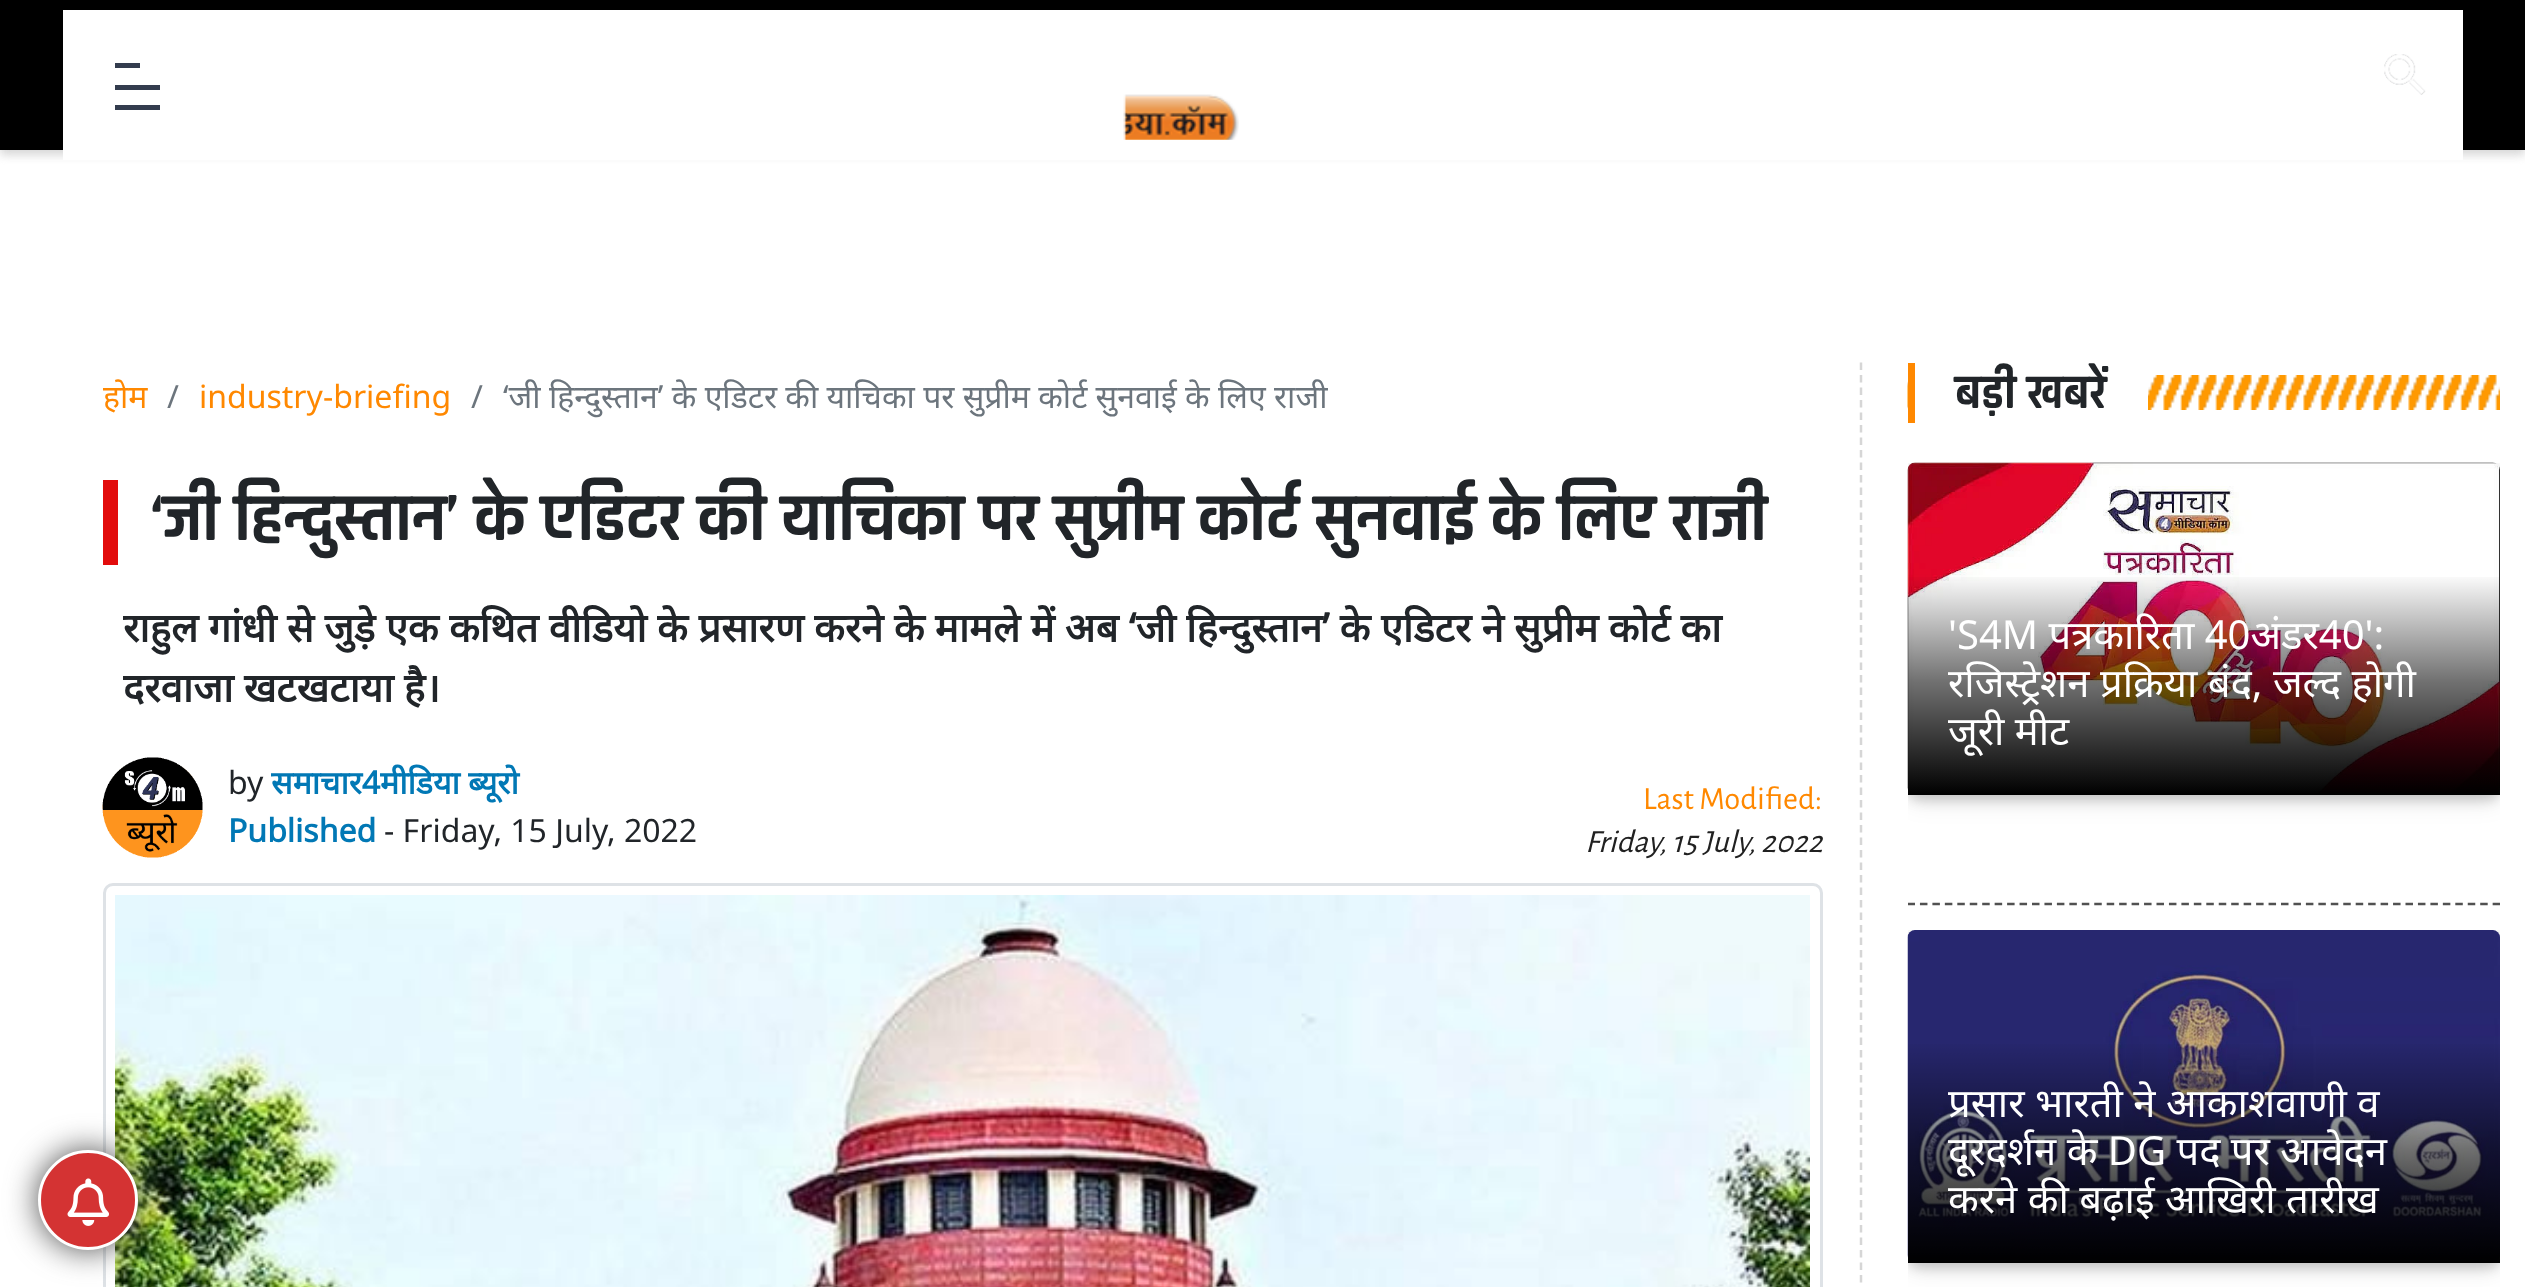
<svg xmlns="http://www.w3.org/2000/svg" width="2525" height="1287" viewBox="0 0 2525 1287">
  <style>
    .t1 { font: 32px Noto Sans; fill: #f80; }
    .t2 { font: 32px Noto Sans; fill: #6c757d; }
    .t3 { font: bold 70px Rajdhani; fill: #212529; }
    .t4 { font: bold 40px Noto Sans; fill: #212529; }
    .t5 { font: 32px Noto Sans; fill: #212529; }
    .t6 { font: bold 32px Noto Sans; fill: #0178b5; }
    .t7 { font: 32.5px Alegreya Sans; fill: #f80; }
    .t8 { font: italic 32.5px Alegreya Sans; fill: #212121; }
    .t9 { font: bold 50px Rajdhani; fill: #212529; }
    .t10 { font: 40px Noto Sans; fill: #fff; }
  </style>
  <defs>
    <clipPath id="clip1"><rect x="103" y="363" width="1720" height="97"/></clipPath>
    <clipPath id="clip2"><rect x="1908" y="463" width="592" height="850"/></clipPath>
    <clipPath id="clip3"><rect x="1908" y="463" width="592" height="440"/></clipPath>
    <linearGradient id="g1" gradientUnits="userSpaceOnUse" x1="2204" y1="573" x2="2204" y2="795"><stop offset="0" stop-color="#000" stop-opacity="0"/><stop offset="0.49" stop-color="#000" stop-opacity="0.56"/><stop offset="1" stop-color="#000"/></linearGradient>
    <clipPath id="clip4"><rect x="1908" y="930" width="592" height="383"/></clipPath>
    <linearGradient id="g2" gradientUnits="userSpaceOnUse" x1="2204" y1="1040" x2="2204" y2="1263"><stop offset="0" stop-color="#000" stop-opacity="0"/><stop offset="0.49" stop-color="#000" stop-opacity="0.56"/><stop offset="1" stop-color="#000"/></linearGradient>
  </defs>
  <rect width="100%" height="100%" fill="#fff"/>
  <rect x="0" y="5" width="2525" height="150" fill="#d6d6d6" filter="blur(5px)"/>
  <rect x="0" y="0" width="2525" height="150" fill="#000"/>
  <rect x="63" y="10" width="2400" height="150" fill="#fff"/>
  <rect x="115" y="63" width="25" height="5" fill="#333c4e"/>
  <rect x="115" y="85" width="45" height="5" fill="#333c4e"/>
  <rect x="115" y="105" width="45" height="5" fill="#333c4e"/>
  <image x="2384" y="54" width="42" height="41" href="images/1.png"/>
  <image x="1123" y="94" width="116" height="46" href="images/2.png"/>
  <rect x="104.5" y="884.5" width="1717" height="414" rx="8.5" fill="none" stroke="#dee2e6" stroke-width="3"/>
  <image x="115" y="895" width="1695" height="392" href="images/5.png"/>
  <rect x="38" y="1150" width="100" height="100" rx="50" fill="#4a4a4a" filter="blur(16px)"/>
  <circle cx="88" cy="1200" r="48.5" fill="#d43333" stroke="#fff" stroke-width="3"/>
  <image x="67" y="1178" width="42" height="48" href="images/3.png"/>
  <path d="M1861 362.5V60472.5" fill="none" stroke="#d6d6d6" stroke-width="2.5" stroke-dasharray="7.5 5"/>
  <g clip-path="url(#clip1)">
    <text x="103" y="408" class="t1">होम</text>
  </g>
  <text x="167" y="408" class="t2">/</text>
  <text x="199" y="408" class="t1">industry-briefing</text>
  <text x="471" y="408" class="t2">/</text>
  <text x="503" y="408" class="t2">‘जी हिन्दुस्तान’ के एडिटर की याचिका पर सुप्रीम कोर्ट सुनवाई के लिए राजी</text>
  <rect x="103" y="480" width="15" height="85" fill="#e20c0c"/>
  <text x="150" y="540" class="t3">‘जी हिन्दुस्तान’ के एडिटर की याचिका पर सुप्रीम कोर्ट सुनवाई के लिए राजी</text>
  <text x="123" y="642" class="t4">राहुल गांधी से जुड़े एक कथित वीडियो के प्रसारण करने के मामले में अब ‘जी हिन्दुस्तान’ के एडिटर ने सुप्रीम कोर्ट का</text>
  <text x="123" y="702" class="t4">दरवाजा खटखटाया है।</text>
  <image x="102" y="757" width="101" height="101" href="images/4.png"/>
  <text x="228" y="794" class="t5">by</text>
  <text x="271" y="794" class="t6">समाचार4मीडिया ब्यूरो</text>
  <text x="228" y="842" class="t6">Published</text>
  <text x="384" y="842" class="t5">- Friday, 15 July, 2022</text>
  <text x="1643" y="809" class="t7">Last Modified:</text>
  <text x="1585" y="852" class="t8">Friday, 15 July, 2022</text>
  <image x="1907" y="375" width="593" height="35" href="images/6.png"/>
  <rect x="1908" y="363" width="7" height="60" fill="#f80"/>
  <rect x="1915" y="375" width="233" height="35" fill="#fff"/>
  <text x="1955" y="408" class="t9">बड़ी खबरें</text>
  <g clip-path="url(#clip2)">
    <path d="M1907.5 904H2500" fill="none" stroke="#515151" stroke-width="2.5" stroke-dasharray="7.5 4.95"/>
  </g>
  <g clip-path="url(#clip3)">
    <rect x="1908" y="468" width="592" height="332" rx="10" fill="#0000001f" filter="blur(12.5px)"/>
    <rect x="1908" y="468" width="592" height="332" rx="10" fill="#00000029" filter="blur(6px)"/>
  </g>
  <image x="1907" y="462" width="593" height="331" href="images/7.png"/>
  <rect x="1908" y="577" width="592" height="218" fill="url(#g1)"/>
  <text x="1948" y="649" class="t10">'S4M पत्रकारिता 40अंडर40':</text>
  <text x="1948" y="697" class="t10">रजिस्ट्रेशन प्रक्रिया बंद, जल्द होगी</text>
  <text x="1948" y="745" class="t10">जूरी मीट</text>
  <g clip-path="url(#clip4)">
    <rect x="1908" y="935" width="592" height="333" rx="10" fill="#0000001f" filter="blur(12.5px)"/>
    <rect x="1908" y="935" width="592" height="333" rx="10" fill="#00000029" filter="blur(6px)"/>
  </g>
  <rect x="1908" y="930" width="592" height="333" rx="10" fill="#212121"/>
  <image x="1907" y="930" width="593" height="331" href="images/8.png"/>
  <rect x="1908" y="1044" width="592" height="219" fill="url(#g2)"/>
  <text x="1948" y="1117" class="t10">प्रसार भारती ने आकाशवाणी व</text>
  <text x="1948" y="1165" class="t10">दूरदर्शन के DG पद पर आवेदन</text>
  <text x="1948" y="1213" class="t10">करने की बढ़ाई आखिरी तारीख</text>
</svg>
